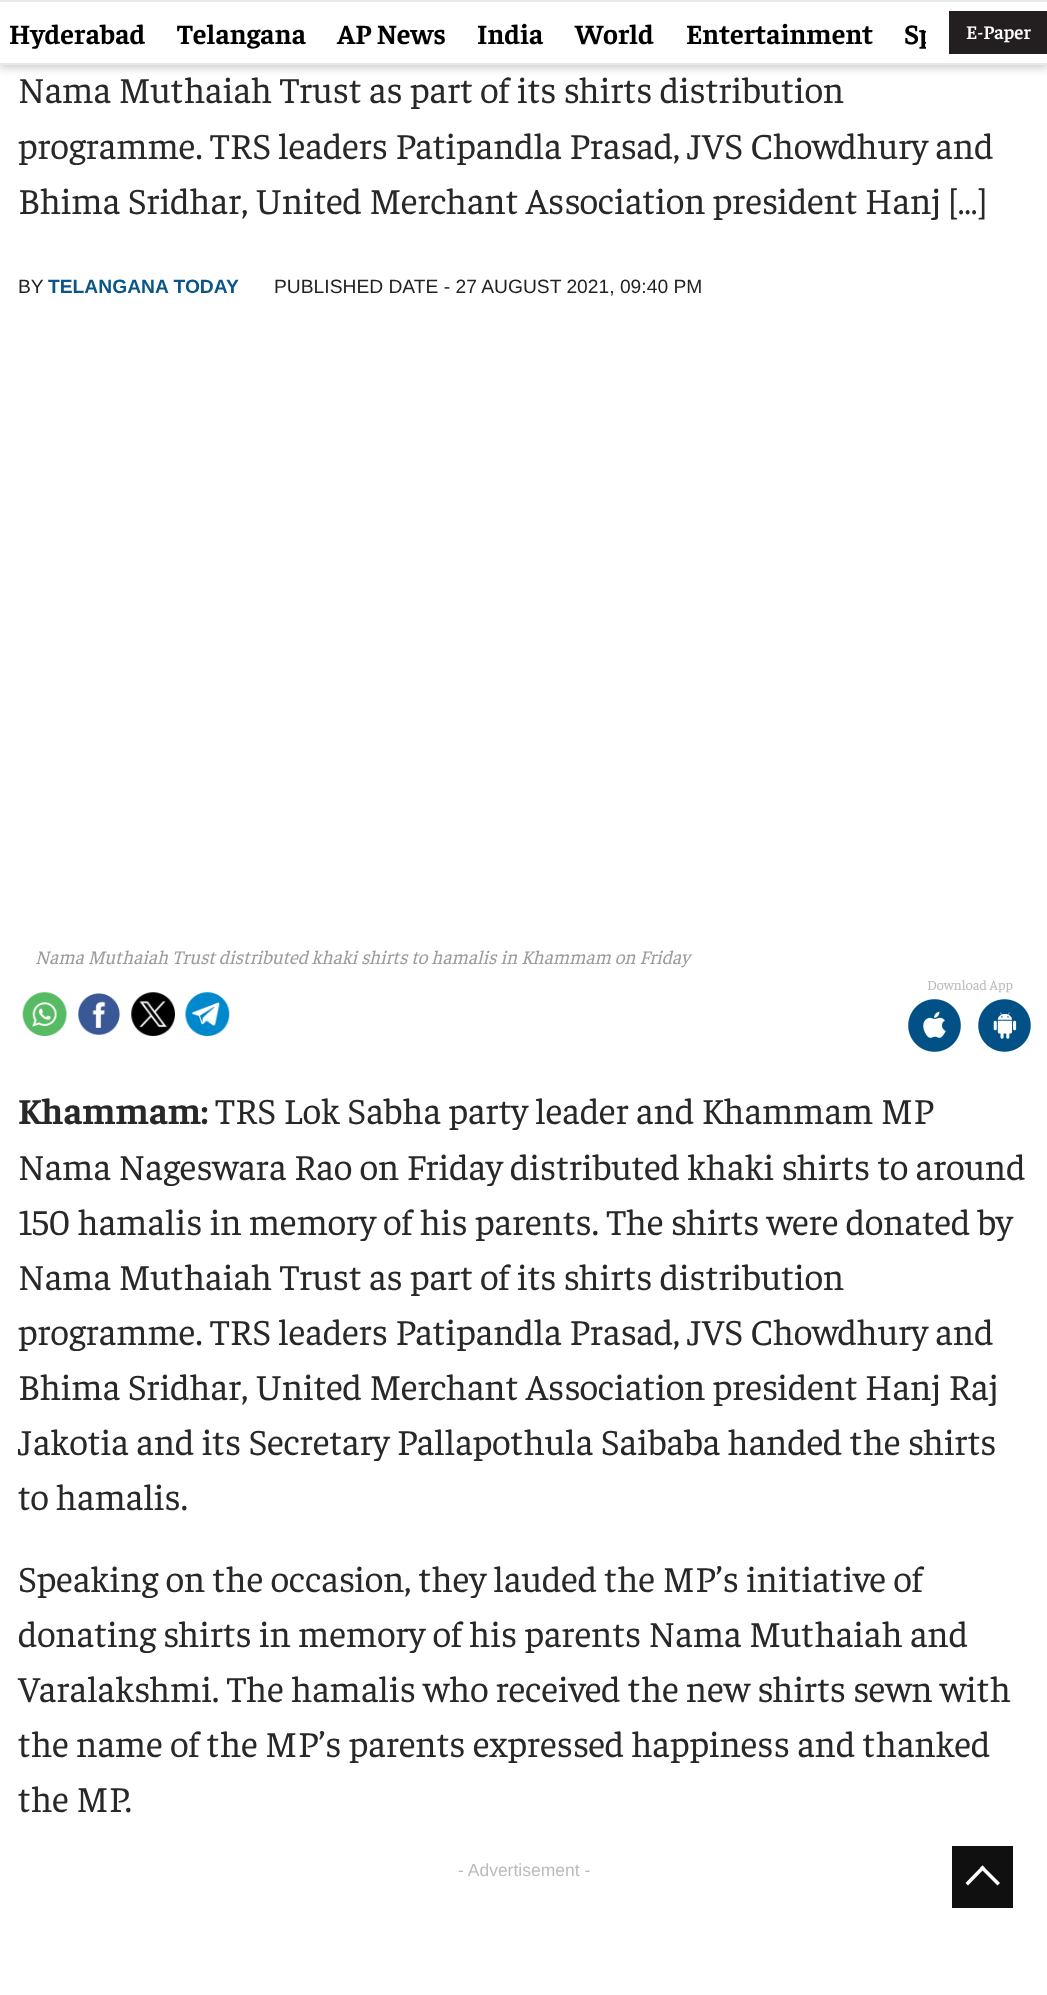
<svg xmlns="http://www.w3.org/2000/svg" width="1047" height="1995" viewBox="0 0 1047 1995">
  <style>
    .t1 { font: bold 28px Faustina; fill: #000; }
    .t2 { font: 600 19.25px Faustina; fill: #fff; }
    .t3 { font: 36.75px Faustina; fill: #282828; }
    .t4 { font: 19.25px Liberation Sans; fill: #222; }
    .t5 { font: bold 19.25px Liberation Sans; fill: #0a558a; }
    .t6 { font: italic 19.25px Faustina; fill: #9c9c9c; }
    .t7 { font: 14px Faustina; fill: #bbb; }
    .t8 { font: bold 36.75px Faustina; fill: #282828; }
    .t9 { font: 17.5px Liberation Sans; fill: #bbb; }
  </style>
  <defs>
    <clipPath id="clip1"><rect x="0" y="2" width="926" height="61"/></clipPath>
  </defs>
  <rect width="100%" height="100%" fill="#fff"/>
  <rect x="0" y="4" width="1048" height="64" fill="#00000033" filter="blur(4.5px)"/>
  <rect x="0" y="2" width="1047" height="61" fill="#fff"/>
  <rect x="0" y="0" width="1047" height="2" fill="#e8e8e8"/>
  <rect x="0" y="63" width="1047" height="2" fill="#e8e8e8"/>
  <text x="9" y="44" class="t1">Hyderabad</text>
  <text x="177" y="44" class="t1">Telangana</text>
  <text x="337" y="44" class="t1">AP News</text>
  <text x="477" y="44" class="t1">India</text>
  <text x="575" y="44" class="t1">World</text>
  <text x="686" y="44" class="t1">Entertainment</text>
  <g clip-path="url(#clip1)">
    <text x="904" y="44" class="t1">Sp</text>
  </g>
  <rect x="949" y="11" width="98" height="43" fill="#231f20"/>
  <text x="966" y="39" class="t2">E-Paper</text>
  <text x="18" y="103" class="t3">Nama Muthaiah Trust as part of its shirts distribution</text>
  <text x="18" y="159" class="t3">programme. TRS leaders Patipandla Prasad, JVS Chowdhury and</text>
  <text x="18" y="214" class="t3">Bhima Sridhar, United Merchant Association president Hanj […]</text>
  <text x="18" y="293" class="t4">BY</text>
  <text x="48" y="293" class="t5">TELANGANA TODAY</text>
  <text x="274" y="293" class="t4">PUBLISHED DATE - 27 AUGUST 2021, 09:40 PM</text>
  <text x="35" y="964" class="t6">Nama Muthaiah Trust distributed khaki shirts to hamalis in Khammam on Friday</text>
  <text x="927" y="990" class="t7">Download App</text>
  <image x="908" y="999" width="53" height="53" href="images/1.png"/>
  <image x="978" y="999" width="53" height="53" href="images/2.png"/>
  <image x="22" y="992" width="45" height="44" href="images/3.png"/>
  <image x="78" y="993" width="42" height="43" href="images/4.png"/>
  <image x="131" y="992" width="44" height="44" href="images/5.png"/>
  <image x="185" y="992" width="45" height="44" href="images/6.png"/>
  <text x="18" y="1124" class="t8">Khammam:</text>
  <text x="215" y="1124" class="t3">TRS Lok Sabha party leader and Khammam MP</text>
  <text x="18" y="1180" class="t3">Nama Nageswara Rao on Friday distributed khaki shirts to around</text>
  <text x="18" y="1235" class="t3">150 hamalis in memory of his parents. The shirts were donated by</text>
  <text x="18" y="1290" class="t3">Nama Muthaiah Trust as part of its shirts distribution</text>
  <text x="18" y="1345" class="t3">programme. TRS leaders Patipandla Prasad, JVS Chowdhury and</text>
  <text x="18" y="1400" class="t3">Bhima Sridhar, United Merchant Association president Hanj Raj</text>
  <text x="18" y="1455" class="t3">Jakotia and its Secretary Pallapothula Saibaba handed the shirts</text>
  <text x="18" y="1510" class="t3">to hamalis.</text>
  <text x="18" y="1592" class="t3">Speaking on the occasion, they lauded the MP’s initiative of</text>
  <text x="18" y="1647" class="t3">donating shirts in memory of his parents Nama Muthaiah and</text>
  <text x="18" y="1702" class="t3">Varalakshmi. The hamalis who received the new shirts sewn with</text>
  <text x="18" y="1757" class="t3">the name of the MP’s parents expressed happiness and thanked</text>
  <text x="18" y="1812" class="t3">the MP.</text>
  <text x="458" y="1876" class="t9">- Advertisement -</text>
  <rect x="952" y="1846" width="61" height="62" fill="#101010"/>
  <path d="M968 1885.5L965.5 1883L982.5 1865.5L985 1868Z" fill="#fff"/>
  <path d="M997.5 1885.5L980 1868L982.5 1865.5L1000 1883Z" fill="#fff"/>
</svg>
